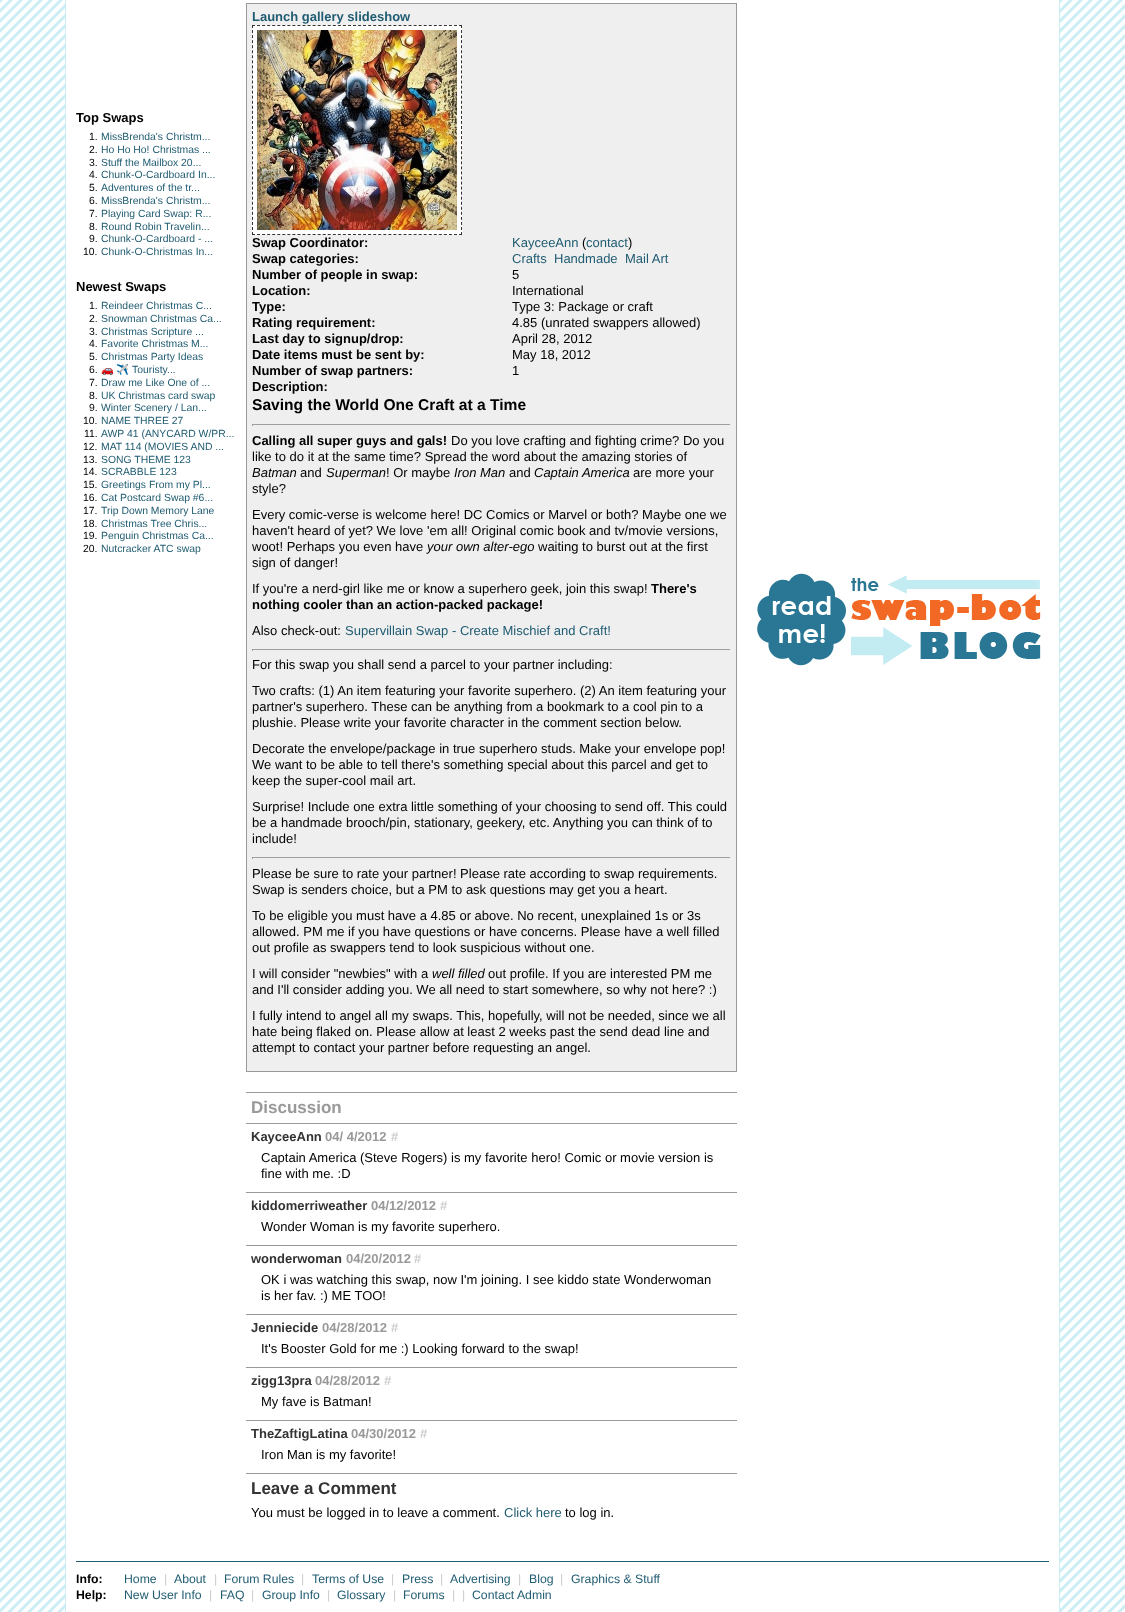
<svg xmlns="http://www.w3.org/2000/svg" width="1125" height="1612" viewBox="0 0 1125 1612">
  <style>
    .t1 { font: bold 13px Liberation Sans; fill: #000; }
    .t2 { font: 10.4px Liberation Sans; fill: #000; }
    .t3 { font: 10.4px Liberation Sans; fill: #1f5b71; }
    .t4 { font: 10.4px Noto Color Emoji; fill: #1f5b71; }
    .t5 { font: bold 13px Liberation Sans; fill: #1f5b71; }
    .t6 { font: 13px Liberation Sans; fill: #1f5b71; }
    .t7 { font: 13px Liberation Sans; fill: #000; }
    .t8 { font: bold 15.6px Liberation Sans; fill: #000; }
    .t9 { font: italic 13px Liberation Sans; fill: #000; }
    .t10 { font: bold 17px Liberation Sans; fill: #999; }
    .t11 { font: bold 13px Liberation Sans; fill: #333; }
    .t12 { font: bold 13px Liberation Sans; fill: #999; }
    .t13 { font: bold 13px Liberation Sans; fill: #ccc; }
    .t14 { font: bold 17px Liberation Sans; fill: #333; }
    .t15 { font: bold 12.25px Liberation Sans; fill: #000; }
    .t16 { font: 12.25px Liberation Sans; fill: #1f5b71; }
    .t17 { font: 12.25px Liberation Sans; fill: #ccc; }
  </style>
  <rect width="100%" height="100%" fill="#fff"/>
  <image x="0" y="0" width="1125" height="1612" href="images/1.png"/>
  <rect x="65.5" y="-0.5" width="994" height="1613" fill="#fff" stroke="#cbeef4"/>
  <text x="76" y="122" class="t1">Top Swaps</text>
  <text x="89" y="140" class="t2">1.</text>
  <text x="101" y="140" class="t3">MissBrenda's Christm...</text>
  <text x="89" y="153" class="t2">2.</text>
  <text x="101" y="153" class="t3">Ho Ho Ho! Christmas ...</text>
  <text x="89" y="166" class="t2">3.</text>
  <text x="101" y="166" class="t3">Stuff the Mailbox 20...</text>
  <text x="89" y="178" class="t2">4.</text>
  <text x="101" y="178" class="t3">Chunk-O-Cardboard In...</text>
  <text x="89" y="191" class="t2">5.</text>
  <text x="101" y="191" class="t3">Adventures of the tr...</text>
  <text x="89" y="204" class="t2">6.</text>
  <text x="101" y="204" class="t3">MissBrenda's Christm...</text>
  <text x="89" y="217" class="t2">7.</text>
  <text x="101" y="217" class="t3">Playing Card Swap: R...</text>
  <text x="89" y="230" class="t2">8.</text>
  <text x="101" y="230" class="t3">Round Robin Travelin...</text>
  <text x="89" y="242" class="t2">9.</text>
  <text x="101" y="242" class="t3">Chunk-O-Cardboard - ...</text>
  <text x="83" y="255" class="t2">10.</text>
  <text x="101" y="255" class="t3">Chunk-O-Christmas In...</text>
  <text x="76" y="291" class="t1">Newest Swaps</text>
  <text x="89" y="309" class="t2">1.</text>
  <text x="101" y="309" class="t3">Reindeer Christmas C...</text>
  <text x="89" y="322" class="t2">2.</text>
  <text x="101" y="322" class="t3">Snowman Christmas Ca...</text>
  <text x="89" y="335" class="t2">3.</text>
  <text x="101" y="335" class="t3">Christmas Scripture ...</text>
  <text x="89" y="347" class="t2">4.</text>
  <text x="101" y="347" class="t3">Favorite Christmas M...</text>
  <text x="89" y="360" class="t2">5.</text>
  <text x="101" y="360" class="t3">Christmas Party Ideas</text>
  <text x="89" y="373" class="t2">6.</text>
  <text x="101" y="373" class="t4">🚗</text>
  <text x="116" y="373" class="t4">✈️</text>
  <text x="132" y="373" class="t3">Touristy...</text>
  <text x="89" y="386" class="t2">7.</text>
  <text x="101" y="386" class="t3">Draw me Like One of ...</text>
  <text x="89" y="399" class="t2">8.</text>
  <text x="101" y="399" class="t3">UK Christmas card swap</text>
  <text x="89" y="411" class="t2">9.</text>
  <text x="101" y="411" class="t3">Winter Scenery / Lan...</text>
  <text x="83" y="424" class="t2">10.</text>
  <text x="101" y="424" class="t3">NAME THREE 27</text>
  <text x="84" y="437" class="t2">11.</text>
  <text x="101" y="437" class="t3">AWP 41 (ANYCARD W/PR...</text>
  <text x="83" y="450" class="t2">12.</text>
  <text x="101" y="450" class="t3">MAT 114 (MOVIES AND ...</text>
  <text x="83" y="463" class="t2">13.</text>
  <text x="101" y="463" class="t3">SONG THEME 123</text>
  <text x="83" y="475" class="t2">14.</text>
  <text x="101" y="475" class="t3">SCRABBLE 123</text>
  <text x="83" y="488" class="t2">15.</text>
  <text x="101" y="488" class="t3">Greetings From my Pl...</text>
  <text x="83" y="501" class="t2">16.</text>
  <text x="101" y="501" class="t3">Cat Postcard Swap #6...</text>
  <text x="83" y="514" class="t2">17.</text>
  <text x="101" y="514" class="t3">Trip Down Memory Lane</text>
  <text x="83" y="527" class="t2">18.</text>
  <text x="101" y="527" class="t3">Christmas Tree Chris...</text>
  <text x="83" y="539" class="t2">19.</text>
  <text x="101" y="539" class="t3">Penguin Christmas Ca...</text>
  <text x="83" y="552" class="t2">20.</text>
  <text x="101" y="552" class="t3">Nutcracker ATC swap</text>
  <rect x="246.5" y="3.5" width="490" height="1068" fill="#efefef" stroke="#999"/>
  <text x="252" y="21" class="t5">Launch gallery slideshow</text>
  <rect x="252" y="25" width="210" height="210" fill="#fff"/>
  <path d="M252 25.5H462" fill="none" stroke="#333" stroke-dasharray="3 2.05"/>
  <path d="M461.5 25V235" fill="none" stroke="#333" stroke-dasharray="3 2.05"/>
  <path d="M252 234.5H462" fill="none" stroke="#333" stroke-dasharray="3 2.05"/>
  <path d="M252.5 25V235" fill="none" stroke="#333" stroke-dasharray="3 2.05"/>
  <image x="257" y="30" width="200" height="200" href="images/2.png"/>
  <text x="252" y="247" class="t1">Swap Coordinator:</text>
  <text x="512" y="247" class="t6">KayceeAnn</text>
  <text x="582" y="247" class="t7">(</text>
  <text x="586" y="247" class="t6">contact</text>
  <text x="628" y="247" class="t7">)</text>
  <text x="252" y="263" class="t1">Swap categories:</text>
  <text x="512" y="263" class="t6">Crafts</text>
  <text x="554" y="263" class="t6">Handmade</text>
  <text x="625" y="263" class="t6">Mail Art</text>
  <text x="252" y="279" class="t1">Number of people in swap:</text>
  <text x="512" y="279" class="t7">5</text>
  <text x="252" y="295" class="t1">Location:</text>
  <text x="512" y="295" class="t7">International</text>
  <text x="252" y="311" class="t1">Type:</text>
  <text x="512" y="311" class="t7">Type 3: Package or craft</text>
  <text x="252" y="327" class="t1">Rating requirement:</text>
  <text x="512" y="327" class="t7">4.85 (unrated swappers allowed)</text>
  <text x="252" y="343" class="t1">Last day to signup/drop:</text>
  <text x="512" y="343" class="t7">April 28, 2012</text>
  <text x="252" y="359" class="t1">Date items must be sent by:</text>
  <text x="512" y="359" class="t7">May 18, 2012</text>
  <text x="252" y="375" class="t1">Number of swap partners:</text>
  <text x="512" y="375" class="t7">1</text>
  <text x="252" y="391" class="t1">Description:</text>
  <text x="252" y="410" class="t8">Saving the World One Craft at a Time</text>
  <rect x="252" y="424" width="479" height="1" fill="#9f9f9f"/>
  <rect x="730" y="424" width="1" height="2" fill="#eee"/>
  <rect x="252" y="424" width="1" height="2" fill="#9f9f9f"/>
  <text x="252" y="445" class="t1">Calling all super guys and gals!</text>
  <text x="451" y="445" class="t7">Do you love crafting and fighting crime? Do you</text>
  <text x="252" y="461" class="t7">like to do it at the same time? Spread the word about the amazing stories of</text>
  <text x="252" y="477" class="t9">Batman</text>
  <text x="300" y="477" class="t7">and</text>
  <text x="326" y="477" class="t9">Superman</text>
  <text x="386" y="477" class="t7">! Or maybe</text>
  <text x="454" y="477" class="t9">Iron Man</text>
  <text x="509" y="477" class="t7">and</text>
  <text x="534" y="477" class="t9">Captain America</text>
  <text x="633" y="477" class="t7">are more your</text>
  <text x="252" y="493" class="t7">style?</text>
  <text x="252" y="519" class="t7">Every comic-verse is welcome here! DC Comics or Marvel or both? Maybe one we</text>
  <text x="252" y="535" class="t7">haven't heard of yet? We love 'em all! Original comic book and tv/movie versions,</text>
  <text x="252" y="551" class="t7">woot! Perhaps you even have</text>
  <text x="427" y="551" class="t9">your own alter-ego</text>
  <text x="538" y="551" class="t7">waiting to burst out at the first</text>
  <text x="252" y="567" class="t7">sign of danger!</text>
  <text x="252" y="593" class="t7">If you're a nerd-girl like me or know a superhero geek, join this swap!</text>
  <text x="651" y="593" class="t1">There's</text>
  <text x="252" y="609" class="t1">nothing cooler than an action-packed package!</text>
  <text x="252" y="635" class="t7">Also check-out:</text>
  <text x="345" y="635" class="t6">Supervillain Swap - Create Mischief and Craft!</text>
  <rect x="252" y="649" width="479" height="1" fill="#9f9f9f"/>
  <rect x="730" y="649" width="1" height="2" fill="#eee"/>
  <rect x="252" y="649" width="1" height="2" fill="#9f9f9f"/>
  <text x="252" y="669" class="t7">For this swap you shall send a parcel to your partner including:</text>
  <text x="252" y="695" class="t7">Two crafts: (1) An item featuring your favorite superhero. (2) An item featuring your</text>
  <text x="252" y="711" class="t7">partner's superhero. These can be anything from a bookmark to a cool pin to a</text>
  <text x="252" y="727" class="t7">plushie. Please write your favorite character in the comment section below.</text>
  <text x="252" y="753" class="t7">Decorate the envelope/package in true superhero studs. Make your envelope pop!</text>
  <text x="252" y="769" class="t7">We want to be able to tell there's something special about this parcel and get to</text>
  <text x="252" y="785" class="t7">keep the super-cool mail art.</text>
  <text x="252" y="811" class="t7">Surprise! Include one extra little something of your choosing to send off. This could</text>
  <text x="252" y="827" class="t7">be a handmade brooch/pin, stationary, geekery, etc. Anything you can think of to</text>
  <text x="252" y="843" class="t7">include!</text>
  <rect x="252" y="857" width="479" height="1" fill="#9f9f9f"/>
  <rect x="730" y="857" width="1" height="2" fill="#eee"/>
  <rect x="252" y="857" width="1" height="2" fill="#9f9f9f"/>
  <text x="252" y="878" class="t7">Please be sure to rate your partner! Please rate according to swap requirements.</text>
  <text x="252" y="894" class="t7">Swap is senders choice, but a PM to ask questions may get you a heart.</text>
  <text x="252" y="920" class="t7">To be eligible you must have a 4.85 or above. No recent, unexplained 1s or 3s</text>
  <text x="252" y="936" class="t7">allowed. PM me if you have questions or have concerns. Please have a well filled</text>
  <text x="252" y="952" class="t7">out profile as swappers tend to look suspicious without one.</text>
  <text x="252" y="978" class="t7">I will consider "newbies" with a</text>
  <text x="432" y="978" class="t9">well filled</text>
  <text x="488" y="978" class="t7">out profile. If you are interested PM me</text>
  <text x="252" y="994" class="t7">and I'll consider adding you. We all need to start somewhere, so why not here? :)</text>
  <text x="252" y="1020" class="t7">I fully intend to angel all my swaps. This, hopefully, will not be needed, since we all</text>
  <text x="252" y="1036" class="t7">hate being flaked on. Please allow at least 2 weeks past the send dead line and</text>
  <text x="252" y="1052" class="t7">attempt to contact your partner before requesting an angel.</text>
  <rect x="246" y="1092" width="491" height="1" fill="#999"/>
  <rect x="246" y="1123" width="491" height="1" fill="#999"/>
  <text x="251" y="1113" class="t10">Discussion</text>
  <rect x="246" y="1192" width="491" height="1" fill="#999"/>
  <text x="251" y="1141" class="t11">KayceeAnn</text>
  <text x="325" y="1141" class="t12">04/ 4/2012</text>
  <text x="391" y="1141" class="t13">#</text>
  <text x="261" y="1162" class="t7">Captain America (Steve Rogers) is my favorite hero! Comic or movie version is</text>
  <text x="261" y="1178" class="t7">fine with me. :D</text>
  <rect x="246" y="1245" width="491" height="1" fill="#999"/>
  <text x="251" y="1210" class="t11">kiddomerriweather</text>
  <text x="371" y="1210" class="t12">04/12/2012</text>
  <text x="440" y="1210" class="t13">#</text>
  <text x="261" y="1231" class="t7">Wonder Woman is my favorite superhero.</text>
  <rect x="246" y="1314" width="491" height="1" fill="#999"/>
  <text x="251" y="1263" class="t11">wonderwoman</text>
  <text x="346" y="1263" class="t12">04/20/2012</text>
  <text x="414" y="1263" class="t13">#</text>
  <text x="261" y="1284" class="t7">OK i was watching this swap, now I'm joining. I see kiddo state Wonderwoman</text>
  <text x="261" y="1300" class="t7">is her fav. :) ME TOO!</text>
  <rect x="246" y="1367" width="491" height="1" fill="#999"/>
  <text x="251" y="1332" class="t11">Jenniecide</text>
  <text x="322" y="1332" class="t12">04/28/2012</text>
  <text x="391" y="1332" class="t13">#</text>
  <text x="261" y="1353" class="t7">It's Booster Gold for me :) Looking forward to the swap!</text>
  <rect x="246" y="1420" width="491" height="1" fill="#999"/>
  <text x="251" y="1385" class="t11">zigg13pra</text>
  <text x="315" y="1385" class="t12">04/28/2012</text>
  <text x="384" y="1385" class="t13">#</text>
  <text x="261" y="1406" class="t7">My fave is Batman!</text>
  <rect x="246" y="1473" width="491" height="1" fill="#999"/>
  <text x="251" y="1438" class="t11">TheZaftigLatina</text>
  <text x="351" y="1438" class="t12">04/30/2012</text>
  <text x="420" y="1438" class="t13">#</text>
  <text x="261" y="1459" class="t7">Iron Man is my favorite!</text>
  <text x="251" y="1494" class="t14">Leave a Comment</text>
  <text x="251" y="1517" class="t7">You must be logged in to leave a comment.</text>
  <text x="504" y="1517" class="t6">Click here</text>
  <text x="565" y="1517" class="t7">to log in.</text>
  <image x="757" y="573" width="284" height="93" href="images/3.png"/>
  <rect x="76" y="1561" width="973" height="1" fill="#1f5b71"/>
  <text x="76" y="1583" class="t15">Info:</text>
  <text x="124" y="1583" class="t16">Home</text>
  <text x="164" y="1583" class="t17">|</text>
  <text x="174" y="1583" class="t16">About</text>
  <text x="214" y="1583" class="t17">|</text>
  <text x="224" y="1583" class="t16">Forum Rules</text>
  <text x="301" y="1583" class="t17">|</text>
  <text x="312" y="1583" class="t16">Terms of Use</text>
  <text x="391" y="1583" class="t17">|</text>
  <text x="402" y="1583" class="t16">Press</text>
  <text x="440" y="1583" class="t17">|</text>
  <text x="450" y="1583" class="t16">Advertising</text>
  <text x="518" y="1583" class="t17">|</text>
  <text x="529" y="1583" class="t16">Blog</text>
  <text x="560" y="1583" class="t17">|</text>
  <text x="571" y="1583" class="t16">Graphics &amp; Stuff</text>
  <text x="76" y="1599" class="t15">Help:</text>
  <text x="124" y="1599" class="t16">New User Info</text>
  <text x="209" y="1599" class="t17">|</text>
  <text x="220" y="1599" class="t16">FAQ</text>
  <text x="251" y="1599" class="t17">|</text>
  <text x="262" y="1599" class="t16">Group Info</text>
  <text x="327" y="1599" class="t17">|</text>
  <text x="337" y="1599" class="t16">Glossary</text>
  <text x="393" y="1599" class="t17">|</text>
  <text x="403" y="1599" class="t16">Forums</text>
  <text x="452" y="1599" class="t17">|</text>
  <text x="462" y="1599" class="t17">|</text>
  <text x="472" y="1599" class="t16">Contact Admin</text>
</svg>
